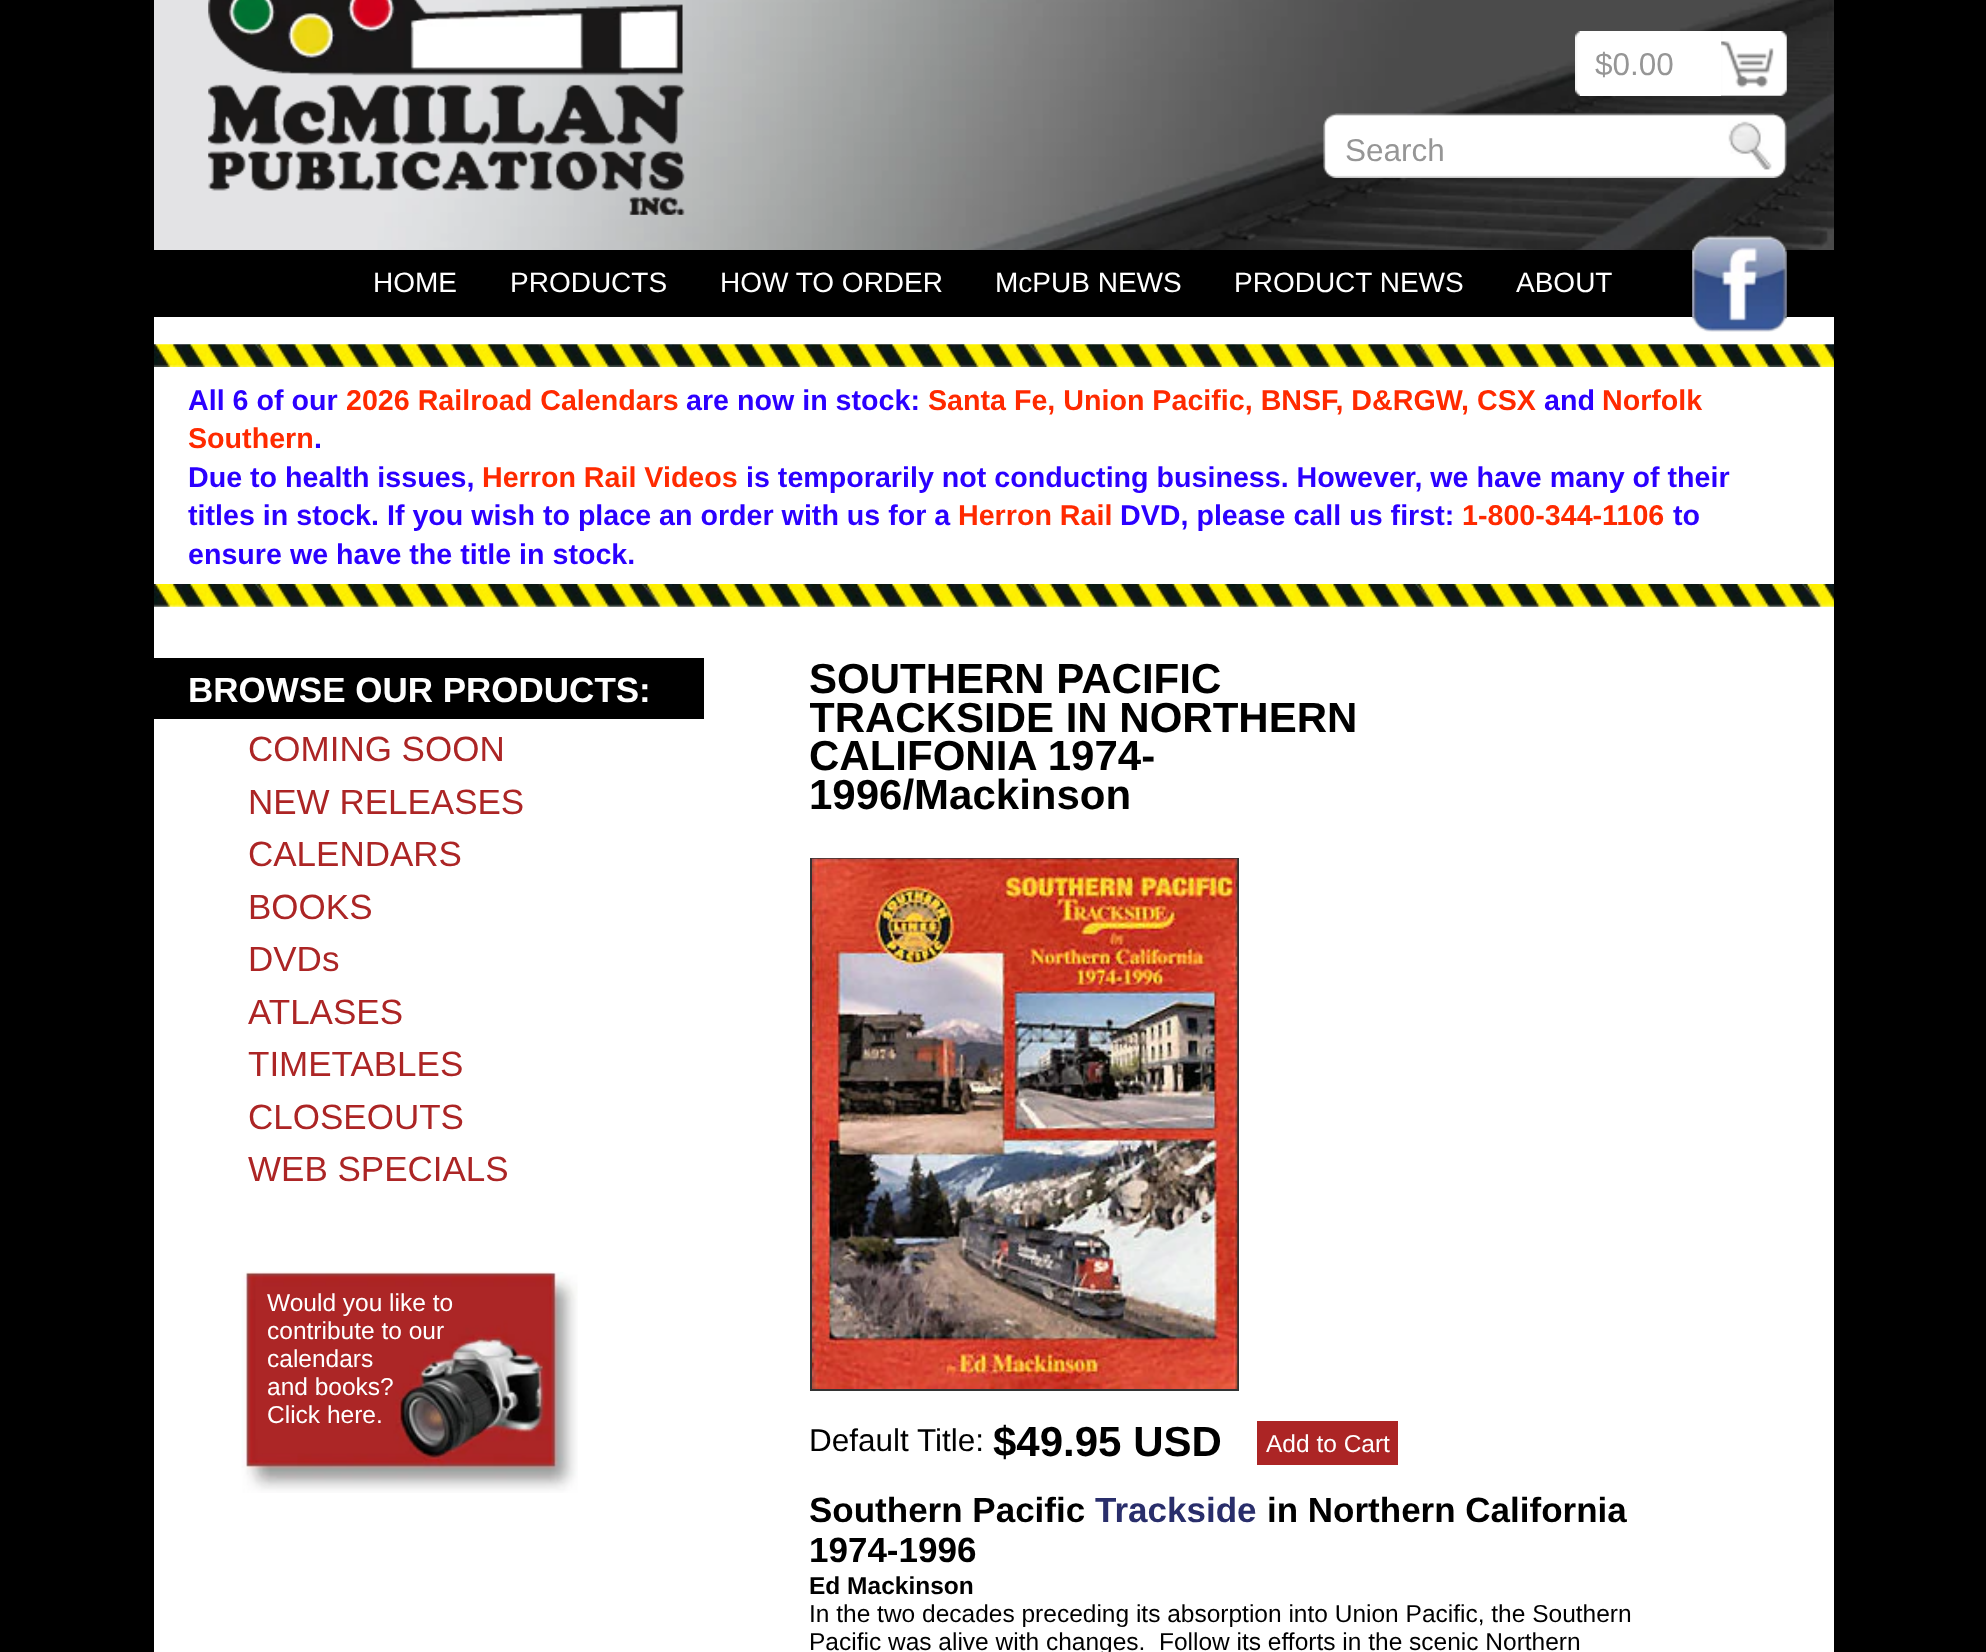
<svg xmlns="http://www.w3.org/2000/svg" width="1986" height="1652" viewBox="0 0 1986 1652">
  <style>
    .t1 { font: 31.5px Liberation Sans; fill: #969696; }
    .t2 { font: 28px Liberation Sans; fill: #fff; }
    .t3 { font: bold 28.65px Liberation Sans; fill: #2b00ff; }
    .t4 { font: bold 28.65px Liberation Sans; fill: #ff2a00; }
    .t5 { font: bold 35px Liberation Sans; fill: #fff; }
    .t6 { font: 35px Liberation Sans; fill: #ac2525; }
    .t7 { font: 24.5px Liberation Sans; fill: #fff; }
    .t8 { font: bold 42px Liberation Sans; fill: #000; }
    .t9 { font: 31.5px Liberation Sans; fill: #000; }
    .t10 { font: bold 35px Liberation Sans; fill: #000; }
    .t11 { font: bold 35px Liberation Sans; fill: #292e6b; }
    .t12 { font: bold 24.5px Liberation Sans; fill: #000; }
    .t13 { font: 24.5px Liberation Sans; fill: #000; }
  </style>
  <defs>
    <clipPath id="clip1"><rect x="810" y="634" width="938" height="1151"/></clipPath>
  </defs>
  <rect width="100%" height="100%" fill="#000"/>
  <image x="154" y="0" width="1680" height="250" href="images/1.png"/>
  <image x="208" y="0" width="477" height="215" href="images/2.png"/>
  <image x="1575" y="31" width="5" height="65" href="images/3.png"/>
  <rect x="1580" y="31" width="141" height="65" fill="#fff"/>
  <text x="1595" y="75" class="t1">$0.00</text>
  <image x="1721" y="31" width="66" height="65" href="images/4.png"/>
  <image x="1323" y="113" width="392" height="65" href="images/5.png"/>
  <text x="1345" y="161" class="t1">Search</text>
  <image x="1715" y="113" width="72" height="65" href="images/6.png"/>
  <text x="373" y="292" class="t2">HOME</text>
  <text x="510" y="292" class="t2">PRODUCTS</text>
  <text x="720" y="292" class="t2">HOW TO ORDER</text>
  <text x="995" y="292" class="t2">McPUB NEWS</text>
  <text x="1234" y="292" class="t2">PRODUCT NEWS</text>
  <text x="1516" y="292" class="t2">ABOUT</text>
  <rect x="154" y="317" width="1680" height="1335" fill="#fff"/>
  <image x="1692" y="235" width="95" height="97" href="images/7.png"/>
  <image x="154" y="344" width="1680" height="23" href="images/8.png"/>
  <text x="188" y="410" class="t3">All 6 of our</text>
  <text x="346" y="410" class="t4">2026 Railroad Calendars</text>
  <text x="686" y="410" class="t3">are now in stock:</text>
  <text x="928" y="410" class="t4">Santa Fe, Union Pacific, BNSF, D&amp;RGW, CSX</text>
  <text x="1544" y="410" class="t3">and</text>
  <text x="1602" y="410" class="t4">Norfolk</text>
  <text x="188" y="448" class="t4">Southern</text>
  <text x="314" y="448" class="t3">.</text>
  <text x="188" y="487" class="t3">Due to health issues,</text>
  <text x="482" y="487" class="t4">Herron Rail Videos</text>
  <text x="746" y="487" class="t3">is temporarily not conducting business. However, we have many of their</text>
  <text x="188" y="525" class="t3">titles in stock. If you wish to place an order with us for a</text>
  <text x="958" y="525" class="t4">Herron Rail</text>
  <text x="1120" y="525" class="t3">DVD, please call us first:</text>
  <text x="1462" y="525" class="t4">1-800-344-1106</text>
  <text x="1673" y="525" class="t3">to</text>
  <text x="188" y="564" class="t3">ensure we have the title in stock.</text>
  <image x="154" y="584" width="1680" height="23" href="images/9.png"/>
  <rect x="154" y="658" width="550" height="61" fill="#000"/>
  <text x="188" y="702" class="t5">BROWSE OUR PRODUCTS:</text>
  <text x="248" y="761" class="t6">COMING SOON</text>
  <text x="248" y="814" class="t6">NEW RELEASES</text>
  <text x="248" y="866" class="t6">CALENDARS</text>
  <text x="248" y="919" class="t6">BOOKS</text>
  <text x="248" y="971" class="t6">DVDs</text>
  <text x="248" y="1024" class="t6">ATLASES</text>
  <text x="248" y="1076" class="t6">TIMETABLES</text>
  <text x="248" y="1129" class="t6">CLOSEOUTS</text>
  <text x="248" y="1181" class="t6">WEB SPECIALS</text>
  <image x="241" y="1271" width="337" height="222" href="images/10.png"/>
  <text x="267" y="1311" class="t7">Would you like to</text>
  <text x="267" y="1339" class="t7">contribute to our</text>
  <text x="267" y="1367" class="t7">calendars</text>
  <text x="267" y="1395" class="t7">and books?</text>
  <text x="267" y="1423" class="t7">Click here.</text>
  <text x="809" y="693" class="t8">SOUTHERN PACIFIC</text>
  <g clip-path="url(#clip1)">
    <text x="809" y="732" class="t8">TRACKSIDE IN NORTHERN</text>
  </g>
  <text x="809" y="770" class="t8">CALIFONIA 1974-</text>
  <text x="809" y="809" class="t8">1996/Mackinson</text>
  <rect x="811" y="859" width="427" height="531" fill="none" stroke="#333" stroke-width="2"/>
  <image x="812" y="858" width="426" height="531" href="images/11.png"/>
  <text x="809" y="1451" class="t9">Default Title:</text>
  <text x="993" y="1456" class="t8">$49.95 USD</text>
  <rect x="1257" y="1421" width="141" height="44" fill="#ac2525"/>
  <text x="1266" y="1452" class="t7">Add to Cart</text>
  <text x="809" y="1522" class="t10">Southern Pacific</text>
  <text x="1095" y="1522" class="t11">Trackside</text>
  <text x="1267" y="1522" class="t10">in Northern California</text>
  <text x="809" y="1562" class="t10">1974-1996</text>
  <text x="809" y="1594" class="t12">Ed Mackinson</text>
  <text x="809" y="1622" class="t13">In the two decades preceding its absorption into Union Pacific, the Southern</text>
  <text x="809" y="1650" class="t13" xml:space="preserve">Pacific was alive with changes.  Follow its efforts in the scenic Northern</text>
</svg>
